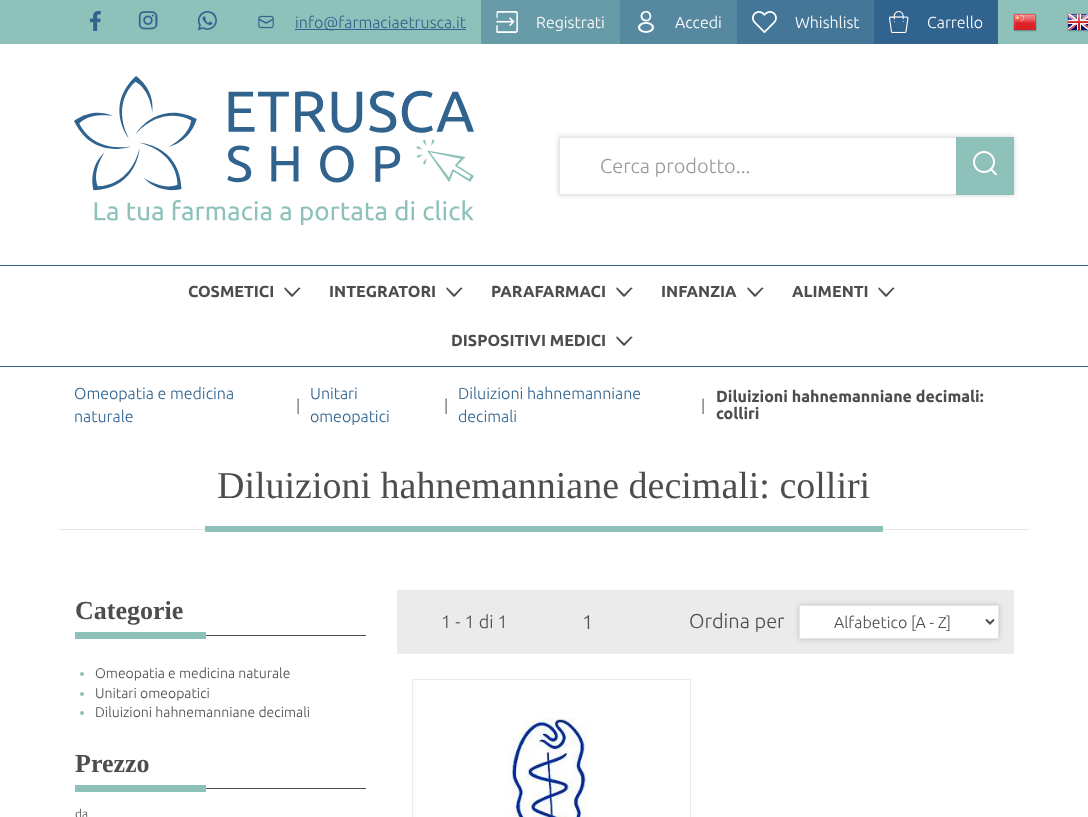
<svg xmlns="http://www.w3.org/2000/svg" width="1088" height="817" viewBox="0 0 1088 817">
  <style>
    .t1 { font: 300 16px Ubuntu; fill: #30638e; }
    .t2 { font: 300 16px Ubuntu; fill: #fff; }
    .t3 { font: 300 20px Ubuntu; fill: #999; }
    .t4 { font: bold 16px Ubuntu; fill: #4d4d4d; }
    .t5 { font: 300 16px Ubuntu; fill: #4d4d4d; }
    .t6 { font: 38px Liberation Serif; fill: #4d4d4d; }
    .t7 { font: bold 26px Liberation Serif; fill: #4d4d4d; }
    .t8 { font: 300 14px Ubuntu; fill: #4d4d4d; }
    .t9 { font: 300 12px Ubuntu; fill: #4d4d4d; }
    .t10 { font: 300 18px Ubuntu; fill: #4d4d4d; }
    .t11 { font: 300 20px Ubuntu; fill: #4d4d4d; }
  </style>
  <defs>
    <clipPath id="clip1"><path d="M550 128H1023V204H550ZM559 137H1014V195H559Z" clip-rule="evenodd"/></clipPath>
  </defs>
  <rect width="100%" height="100%" fill="#fff"/>
  <rect x="0" y="0" width="1088" height="44" fill="#8ec1ba"/>
  <image x="89" y="11" width="12" height="20" href="images/1.png"/>
  <image x="138" y="11" width="20" height="19" href="images/2.png"/>
  <image x="198" y="11" width="19" height="20" href="images/3.png"/>
  <image x="258" y="15" width="16" height="14" href="images/4.png"/>
  <rect x="295" y="29" width="171" height="1" fill="#30638e"/>
  <text x="295" y="28" class="t1">info@farmaciaetrusca.it</text>
  <rect x="481" y="0" width="139" height="44" fill="#689ba8"/>
  <image x="496" y="11" width="22" height="22" href="images/5.png"/>
  <text x="536" y="28" class="t2">Registrati</text>
  <rect x="620" y="0" width="117" height="44" fill="#5689a0"/>
  <image x="638" y="11" width="16" height="22" href="images/6.png"/>
  <text x="675" y="28" class="t2">Accedi</text>
  <rect x="737" y="0" width="137" height="44" fill="#437697"/>
  <image x="752" y="11" width="25" height="22" href="images/7.png"/>
  <text x="795" y="28" class="t2">Whishlist</text>
  <rect x="874" y="0" width="124" height="44" fill="#30638e"/>
  <image x="889" y="11" width="20" height="22" href="images/8.png"/>
  <text x="927" y="28" class="t2">Carrello</text>
  <image x="1013" y="13" width="24" height="19" href="images/9.png"/>
  <image x="1067" y="13" width="21" height="19" href="images/10.png"/>
  <image x="74" y="76" width="400" height="149" href="images/11.png"/>
  <g clip-path="url(#clip1)">
    <rect x="559" y="137" width="455" height="58" fill="#13110c33" filter="blur(2.5px)"/>
  </g>
  <rect x="559.5" y="137.5" width="454" height="57" fill="none" stroke="#e7e6e7"/>
  <text x="600" y="173" class="t3">Cerca prodotto...</text>
  <rect x="956" y="137" width="58" height="58" fill="#8ec1ba"/>
  <image x="973" y="151" width="24" height="24" href="images/12.png"/>
  <rect x="0" y="265" width="1088" height="1" fill="#30638e"/>
  <rect x="0" y="366" width="1088" height="1" fill="#30638e"/>
  <text x="188" y="297" class="t4">COSMETICI</text>
  <image x="284" y="287" width="17" height="10" href="images/13.png"/>
  <text x="329" y="297" class="t4">INTEGRATORI</text>
  <image x="446" y="287" width="17" height="10" href="images/13.png"/>
  <text x="491" y="297" class="t4">PARAFARMACI</text>
  <image x="616" y="287" width="17" height="10" href="images/13.png"/>
  <text x="661" y="297" class="t4">INFANZIA</text>
  <image x="747" y="287" width="17" height="10" href="images/13.png"/>
  <text x="792" y="297" class="t4">ALIMENTI</text>
  <image x="878" y="287" width="17" height="10" href="images/13.png"/>
  <text x="451" y="346" class="t4">DISPOSITIVI MEDICI</text>
  <image x="616" y="336" width="17" height="10" href="images/13.png"/>
  <text x="74" y="399" class="t1">Omeopatia e medicina</text>
  <text x="74" y="422" class="t1">naturale</text>
  <text x="296" y="411" class="t5">|</text>
  <text x="310" y="399" class="t1">Unitari</text>
  <text x="310" y="422" class="t1">omeopatici</text>
  <text x="444" y="411" class="t5">|</text>
  <text x="458" y="399" class="t1">Diluizioni hahnemanniane</text>
  <text x="458" y="422" class="t1">decimali</text>
  <text x="701" y="411" class="t5">|</text>
  <text x="716" y="402" class="t4">Diluizioni hahnemanniane decimali:</text>
  <text x="716" y="419" class="t4">colliri</text>
  <rect x="59" y="529" width="970" height="1" fill="#e7e6e7"/>
  <text x="217" y="498" class="t6">Diluizioni hahnemanniane decimali: colliri</text>
  <rect x="205" y="526" width="678" height="6" fill="#8ec1ba"/>
  <text x="75" y="619" class="t7">Categorie</text>
  <rect x="206" y="635" width="160" height="1" fill="#4d4d4d"/>
  <rect x="75" y="632" width="131" height="7" fill="#8ec1ba"/>
  <circle cx="82" cy="674" r="2" fill="#8ec1ba"/>
  <text x="95" y="678" class="t8">Omeopatia e medicina naturale</text>
  <circle cx="82" cy="694" r="2" fill="#8ec1ba"/>
  <text x="95" y="698" class="t8">Unitari omeopatici</text>
  <circle cx="82" cy="713" r="2" fill="#8ec1ba"/>
  <text x="95" y="717" class="t8">Diluizioni hahnemanniane decimali</text>
  <text x="75" y="772" class="t7">Prezzo</text>
  <rect x="206" y="788" width="160" height="1" fill="#4d4d4d"/>
  <rect x="75" y="785" width="131" height="7" fill="#8ec1ba"/>
  <text x="75" y="818" class="t9">da</text>
  <rect x="397" y="590" width="617" height="64" fill="#ebebeb"/>
  <text x="441" y="628" class="t10">1 - 1 di 1</text>
  <text x="582" y="629" class="t11">1</text>
  <text x="689" y="628" class="t11">Ordina per</text>
  <rect x="799" y="605" width="200" height="34" fill="#13110c33" filter="blur(2.5px)"/>
  <rect x="799.5" y="605.5" width="199" height="33" fill="#fff" stroke="#e7e6e7"/>
  <path d="M986 619.5L990 623.5L994 619.5" fill="none" stroke="#4d4d4d" stroke-width="2"/>
  <text x="834" y="628" class="t5">Alfabetico [A - Z]</text>
  <rect x="412.5" y="679.5" width="278" height="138" fill="none" stroke="#ebebeb"/>
  <image x="505" y="718" width="83" height="99" href="images/14.png"/>
</svg>
